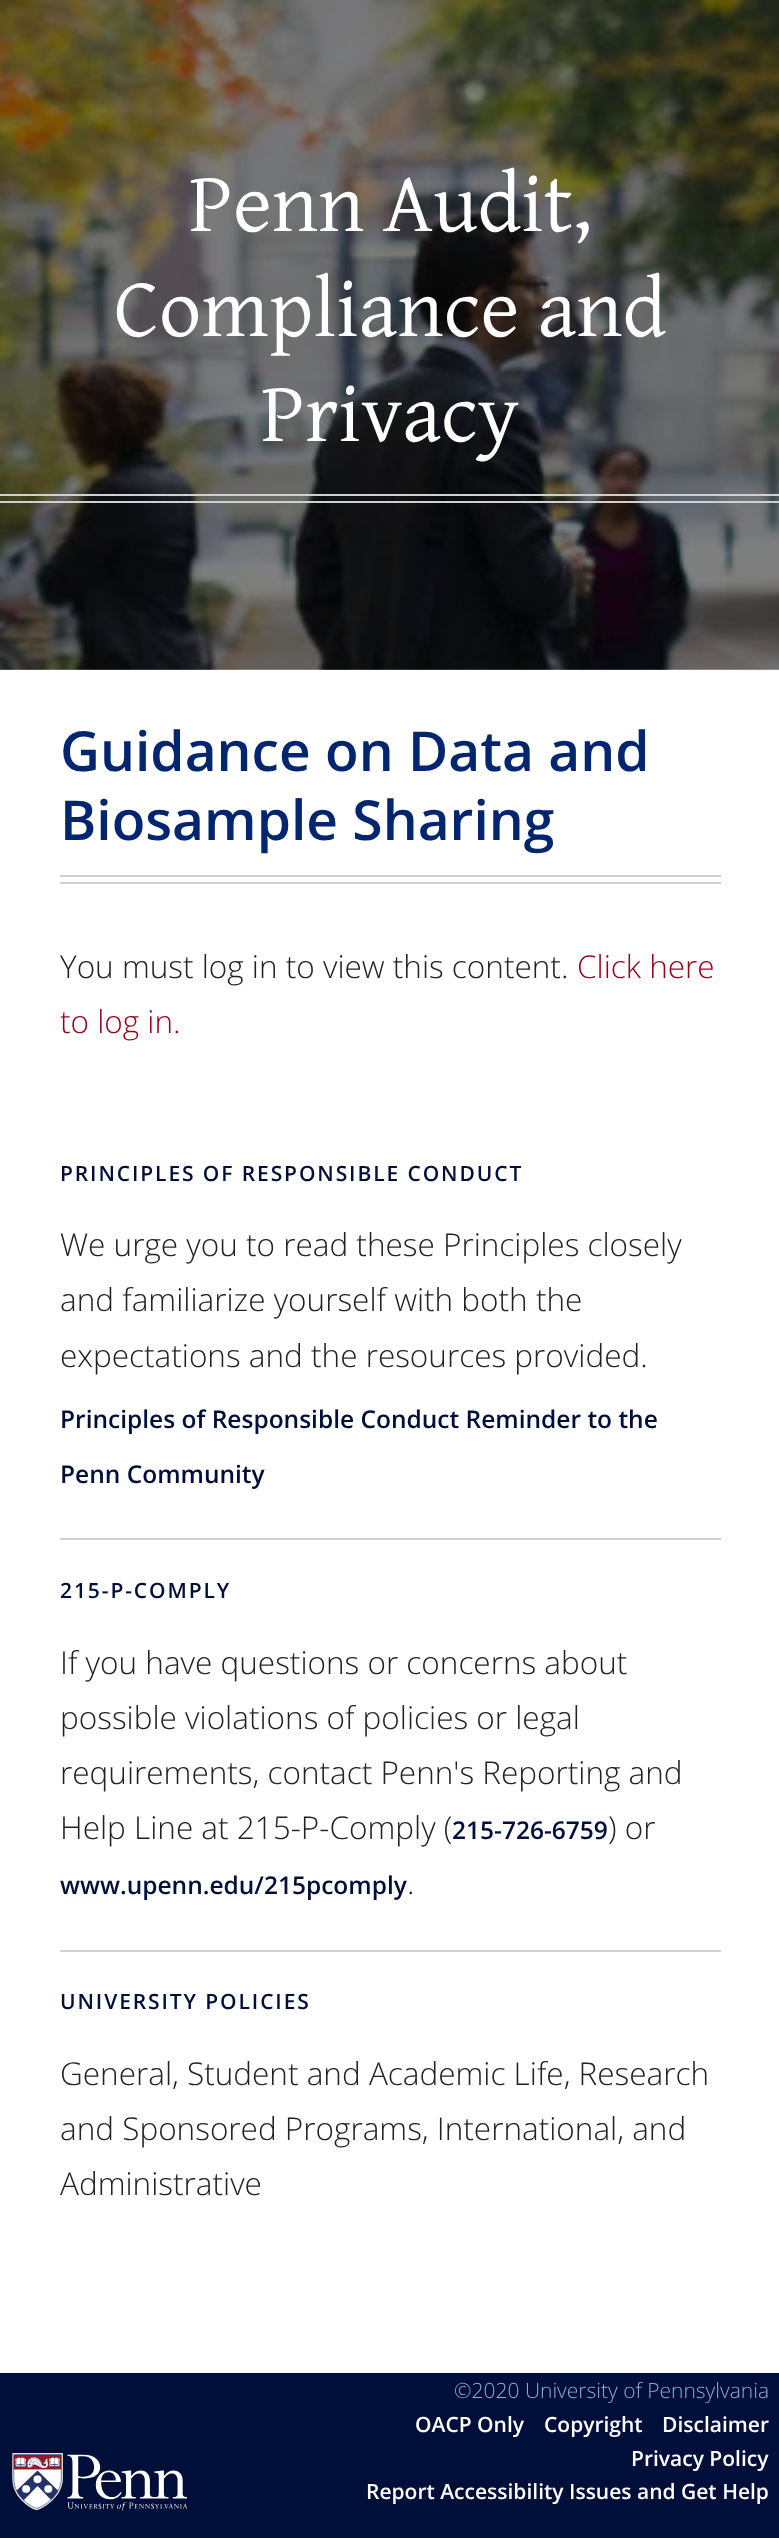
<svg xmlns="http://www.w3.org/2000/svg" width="779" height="2538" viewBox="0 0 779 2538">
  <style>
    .t1 { font: 84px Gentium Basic; fill: #fff; }
    .t2 { font: 600 55.1px Open Sans; fill: #01256e; }
    .t3 { font: 300 31.5px Open Sans; fill: #222; }
    .t4 { font: 300 31.5px Open Sans; fill: #95001a; }
    .t5 { font: 600 21px Open Sans; letter-spacing: 1.9px; fill: #000f3a; }
    .t6 { font: 600 24.5px Open Sans; fill: #000f3a; }
    .t7 { font: 300 21px Open Sans; fill: #82afd3; }
    .t8 { font: 600 21px Open Sans; fill: #fff; }
  </style>
  <rect width="100%" height="100%" fill="#fff"/>
  <image x="0" y="0" width="779" height="670" href="images/1.png"/>
  <text x="189" y="231" class="t1">Penn Audit,</text>
  <text x="114" y="336" class="t1">Compliance and</text>
  <text x="261" y="441" class="t1">Privacy</text>
  <rect x="0" y="494" width="779" height="2" fill="#cfd0d2"/>
  <rect x="0" y="501" width="779" height="2" fill="#cfd0d2"/>
  <text x="60" y="771" class="t2">Guidance on Data and</text>
  <text x="60" y="840" class="t2">Biosample Sharing</text>
  <rect x="60" y="875" width="661" height="2" fill="#cfd0d2"/>
  <rect x="60" y="882" width="661" height="2" fill="#cfd0d2"/>
  <text x="60" y="978" class="t3">You must log in to view this content.</text>
  <text x="577" y="978" class="t4">Click here</text>
  <text x="60" y="1033" class="t4">to log in.</text>
  <text x="60" y="1181" class="t5">PRINCIPLES OF RESPONSIBLE CONDUCT</text>
  <text x="60" y="1256" class="t3">We urge you to read these Principles closely</text>
  <text x="60" y="1311" class="t3">and familiarize yourself with both the</text>
  <text x="60" y="1367" class="t3">expectations and the resources provided.</text>
  <text x="60" y="1428" class="t6">Principles of Responsible Conduct Reminder to the</text>
  <text x="60" y="1483" class="t6">Penn Community</text>
  <rect x="60" y="1538" width="661" height="2" fill="#d1d1d1"/>
  <text x="60" y="1598" class="t5">215-P-COMPLY</text>
  <text x="60" y="1674" class="t3">If you have questions or concerns about</text>
  <text x="60" y="1729" class="t3">possible violations of policies or legal</text>
  <text x="60" y="1784" class="t3">requirements, contact Penn's Reporting and</text>
  <text x="60" y="1839" class="t3">Help Line at 215-P-Comply (</text>
  <text x="452" y="1839" class="t6">215-726-6759</text>
  <text x="608" y="1839" class="t3">) or</text>
  <text x="60" y="1894" class="t6">www.upenn.edu/215pcomply</text>
  <text x="407" y="1894" class="t3">.</text>
  <rect x="60" y="1950" width="661" height="2" fill="#d1d1d1"/>
  <text x="60" y="2009" class="t5">UNIVERSITY POLICIES</text>
  <text x="60" y="2085" class="t3">General, Student and Academic Life, Research</text>
  <text x="60" y="2140" class="t3">and Sponsored Programs, International, and</text>
  <text x="60" y="2195" class="t3">Administrative</text>
  <rect x="0" y="2373" width="779" height="165" fill="#000f3a"/>
  <image x="12" y="2453" width="175" height="58" href="images/2.png"/>
  <text x="454" y="2398" class="t7">©2020 University of Pennsylvania</text>
  <text x="415" y="2432" class="t8">OACP Only</text>
  <text x="544" y="2432" class="t8">Copyright</text>
  <text x="662" y="2432" class="t8">Disclaimer</text>
  <text x="631" y="2466" class="t8">Privacy Policy</text>
  <text x="366" y="2499" class="t8">Report Accessibility Issues and Get Help</text>
</svg>
